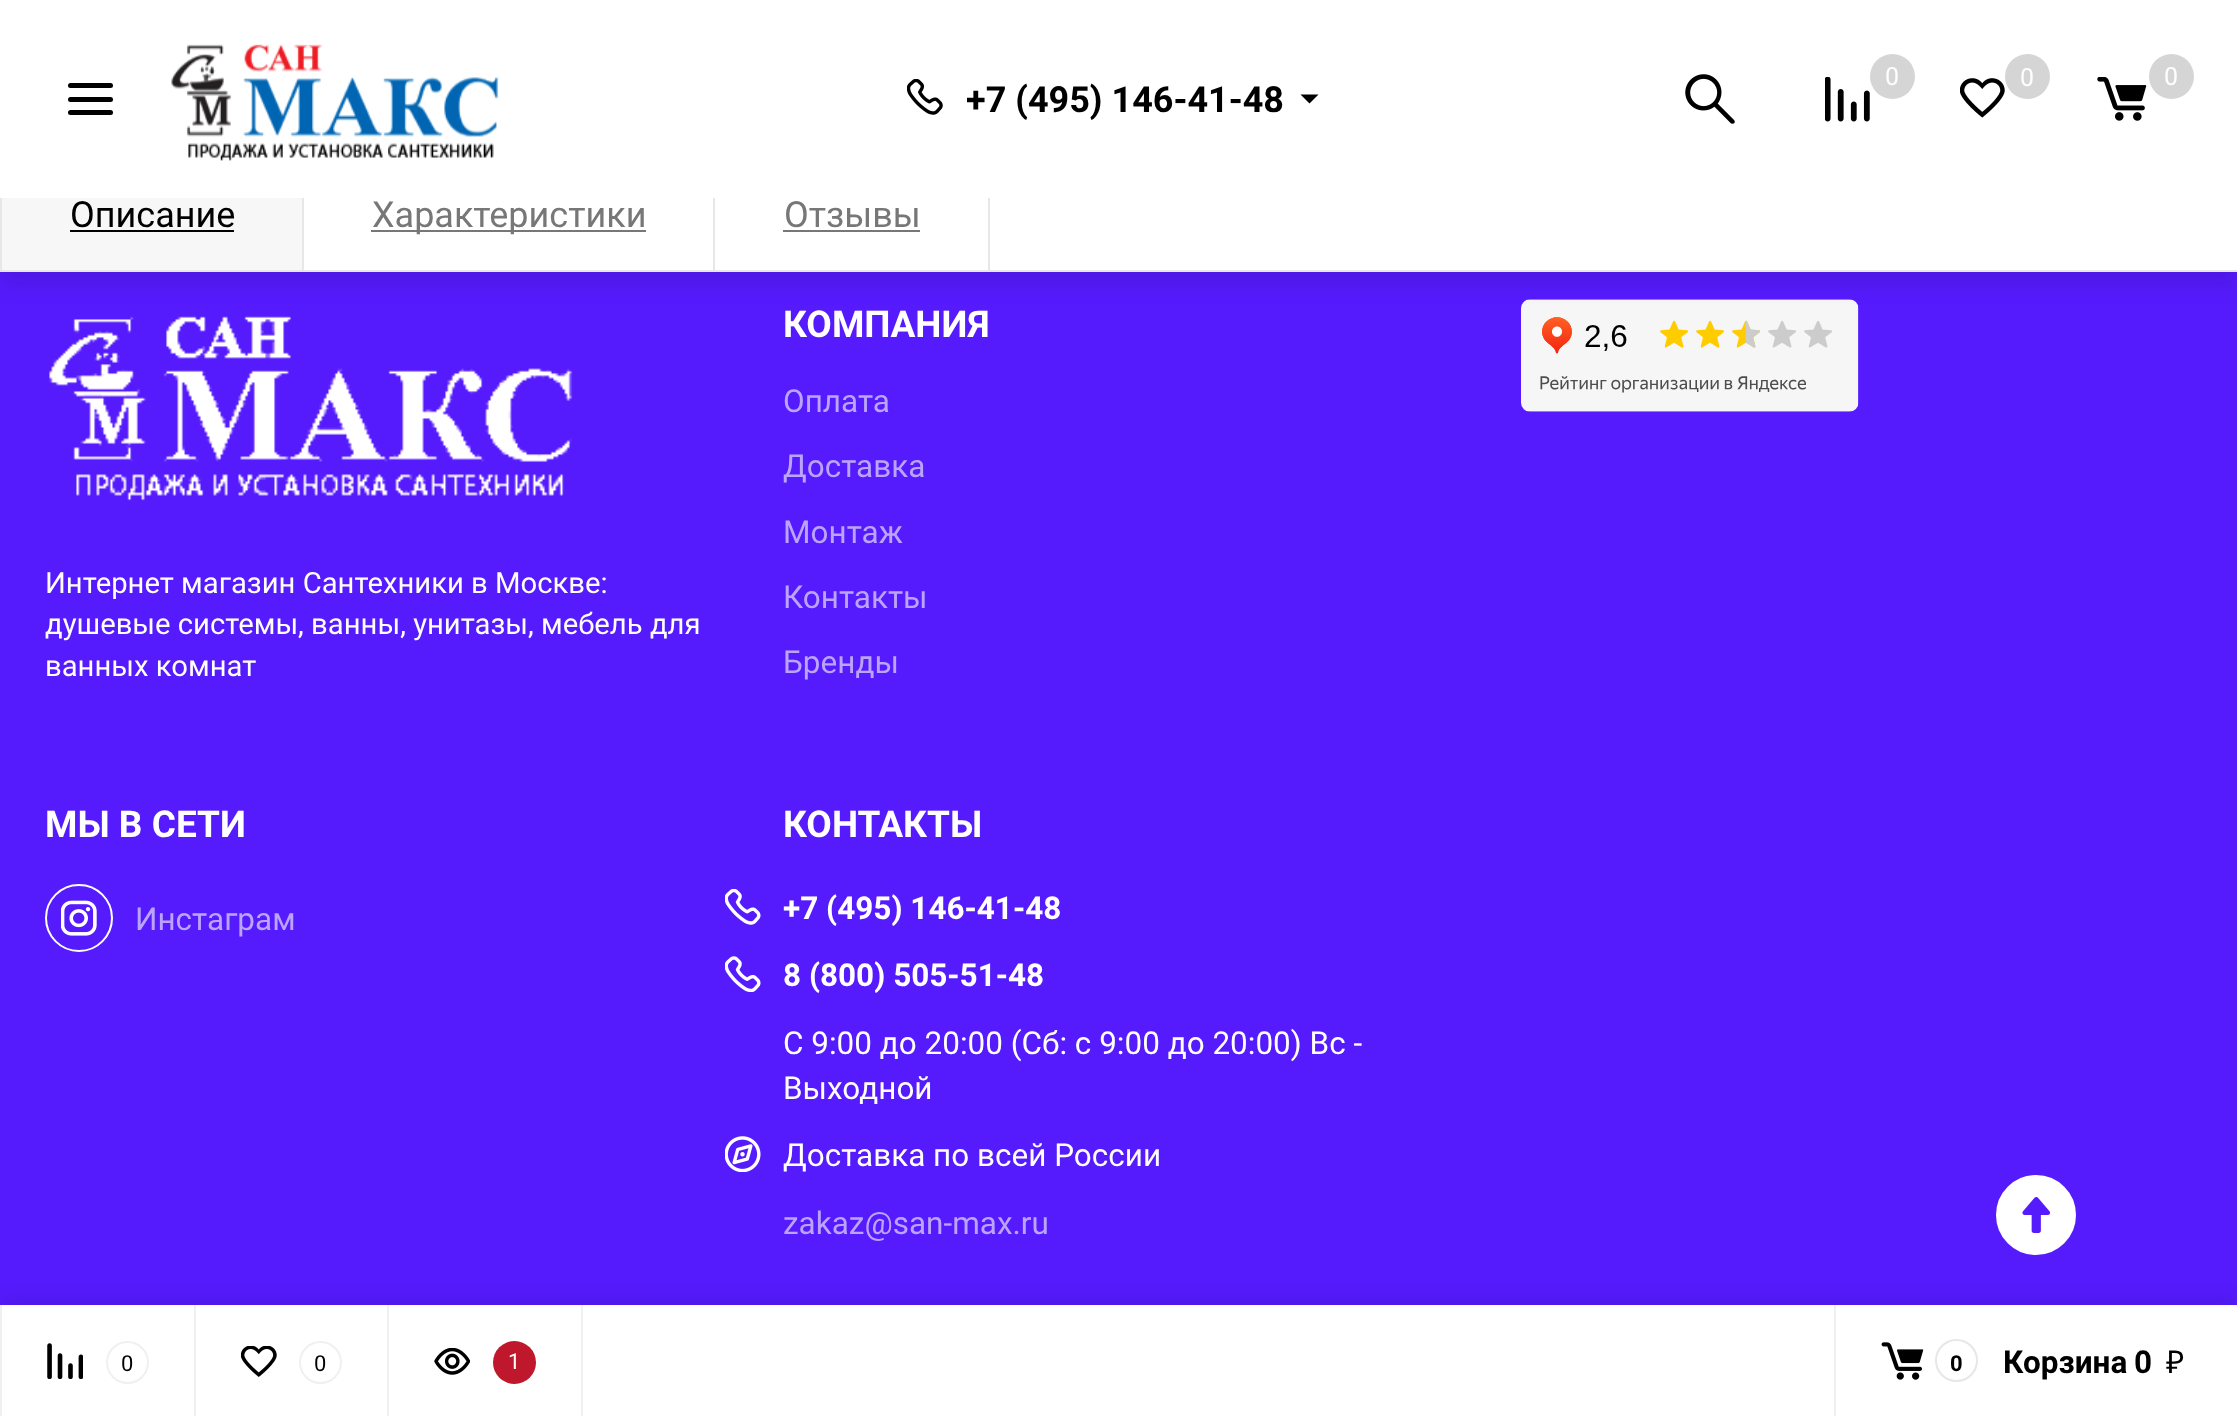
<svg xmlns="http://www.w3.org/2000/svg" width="2237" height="1416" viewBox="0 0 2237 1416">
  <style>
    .t1 { font: 25px Roboto; fill: #fff; }
    .t2 { font: bold 36px Roboto; fill: #000; }
    .t3 { font: 36px Roboto; fill: #000; }
    .t4 { font: 36px Roboto; fill: #777; }
    .t5 { font: 29.25px Roboto; fill: #fff; }
    .t6 { font: bold 37px Roboto; fill: #fff; }
    .t7 { font: 31.5px Roboto; fill: #bba4fe; }
    .t8 { font: bold 31.5px Roboto; fill: #fff; }
    .t9 { font: 31.5px Roboto; fill: #fff; }
    .t10 { font: 22px Roboto; fill: #000; }
    .t11 { font: 22px Roboto; fill: #fff; }
    .t12 { font: bold 22px Roboto; fill: #000; }
    .t13 { font: bold 31.5px Roboto; fill: #000; }
    .t14 { font: 31.5px Noto Sans; fill: #000; }
  </style>
  <rect width="100%" height="100%" fill="#561bfd"/>
  <image x="49" y="316" width="524" height="185" href="images/7.png"/>
  <image x="1521" y="299" width="338" height="113" href="images/8.png"/>
  <rect x="0" y="169" width="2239" height="115" fill="#0000001a" filter="blur(11px)"/>
  <rect x="304" y="198" width="1933" height="72" fill="#fff"/>
  <path d="M7 158H990V270H0V164C0 161 3 158 7 158ZM7 160H988V270H2V164C2 162 4 160 7 160Z" fill="#e7e7e7" fill-rule="evenodd"/>
  <rect x="0" y="0" width="2237" height="198" fill="#fff"/>
  <rect x="68" y="97" width="45" height="5" rx="2.5" fill="#000"/>
  <rect x="68" y="83" width="45" height="5" rx="2.5" fill="#000"/>
  <rect x="68" y="110" width="45" height="5" rx="2.5" fill="#000"/>
  <image x="171" y="44" width="328" height="117" href="images/1.png"/>
  <image x="1685" y="74" width="50" height="50" href="images/2.png"/>
  <image x="1825" y="77" width="45" height="45" href="images/3.png"/>
  <circle cx="1892.5" cy="76.5" r="22.5" fill="#d5d5d5"/>
  <text x="1885" y="85" class="t1">0</text>
  <image x="1960" y="78" width="45" height="40" href="images/4.png"/>
  <circle cx="2027.5" cy="76.5" r="22.5" fill="#d5d5d5"/>
  <text x="2020" y="86" class="t1">0</text>
  <image x="2097" y="77" width="50" height="44" href="images/5.png"/>
  <circle cx="2171.5" cy="76.5" r="22.5" fill="#d5d5d5"/>
  <text x="2164" y="85" class="t1">0</text>
  <image x="907" y="79" width="36" height="36" href="images/6.png"/>
  <text x="966" y="112" class="t2">+7 (495) 146-41-48</text>
  <path d="M1300.5 94.5H1318.5L1309.5 103.5Z" fill="#000"/>
  <rect x="0" y="270" width="2237" height="2" fill="#e7e7e7"/>
  <rect x="2" y="198" width="300" height="72" fill="#f7f7f7"/>
  <rect x="302" y="198" width="2" height="72" fill="#e7e7e7"/>
  <text x="70" y="227" class="t3">Описание</text>
  <rect x="70" y="230" width="164" height="2" fill="#000"/>
  <rect x="713" y="198" width="2" height="72" fill="#e7e7e7"/>
  <rect x="371" y="230" width="275" height="2" fill="#777"/>
  <text x="372" y="227" class="t4">Характеристики</text>
  <text x="784" y="227" class="t4">Отзывы</text>
  <rect x="783" y="230" width="137" height="2" fill="#777"/>
  <text x="45" y="593" class="t5">Интернет магазин Сантехники в Москве:</text>
  <text x="45" y="634" class="t5">душевые системы, ванны, унитазы, мебель для</text>
  <text x="45" y="676" class="t5">ванных комнат</text>
  <text x="783" y="337" class="t6">КОМПАНИЯ</text>
  <text x="783" y="412" class="t7">Оплата</text>
  <text x="783" y="477" class="t7">Доставка</text>
  <text x="783" y="543" class="t7">Монтаж</text>
  <text x="783" y="608" class="t7">Контакты</text>
  <text x="783" y="673" class="t7">Бренды</text>
  <text x="45" y="837" class="t6">МЫ В СЕТИ</text>
  <circle cx="79" cy="918" r="33" fill="none" stroke="#fff" stroke-width="2"/>
  <image x="61" y="900" width="36" height="36" href="images/9.png"/>
  <text x="135" y="930" class="t7">Инстаграм</text>
  <text x="783" y="837" class="t6">КОНТАКТЫ</text>
  <image x="725" y="889" width="36" height="36" href="images/10.png"/>
  <text x="783" y="919" class="t8">+7 (495) 146-41-48</text>
  <image x="725" y="956" width="36" height="36" href="images/11.png"/>
  <text x="783" y="986" class="t8">8 (800) 505-51-48</text>
  <text x="783" y="1054" class="t9">С 9:00 до 20:00 (Сб: с 9:00 до 20:00) Вс -</text>
  <text x="783" y="1099" class="t9">Выходной</text>
  <image x="725" y="1136" width="36" height="36" href="images/12.png"/>
  <text x="783" y="1166" class="t9">Доставка по всей России</text>
  <text x="783" y="1234" class="t7">zakaz@san-max.ru</text>
  <circle cx="2036" cy="1215" r="42.5" fill="#fff" stroke="#561bfd" stroke-width="5"/>
  <image x="2022" y="1197" width="29" height="36" href="images/13.png"/>
  <rect x="0" y="1301" width="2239" height="112" fill="#0000001c" filter="blur(10px)"/>
  <rect x="2" y="1305" width="2235" height="111" fill="#fff"/>
  <rect x="194" y="1305" width="2" height="111" fill="#f0f0f0"/>
  <rect x="0" y="1305" width="2" height="111" fill="#f0f0f0"/>
  <image x="47" y="1343" width="36" height="36" href="images/14.png"/>
  <circle cx="127.5" cy="1362.5" r="20.5" fill="none" stroke="#f0f0f0" stroke-width="2"/>
  <text x="121" y="1371" class="t10">0</text>
  <rect x="387" y="1305" width="2" height="111" fill="#f0f0f0"/>
  <image x="241" y="1346" width="36" height="31" href="images/15.png"/>
  <circle cx="320.5" cy="1362.5" r="20.5" fill="none" stroke="#f0f0f0" stroke-width="2"/>
  <text x="314" y="1371" class="t10">0</text>
  <rect x="581" y="1305" width="2" height="111" fill="#f0f0f0"/>
  <image x="434" y="1348" width="36" height="27" href="images/16.png"/>
  <circle cx="514.5" cy="1362.5" r="21.5" fill="#bf182c"/>
  <text x="508" y="1369" class="t11">1</text>
  <rect x="1834" y="1305" width="2" height="111" fill="#f0f0f0"/>
  <image x="1881" y="1342" width="43" height="38" href="images/17.png"/>
  <circle cx="1956.5" cy="1360.5" r="20.5" fill="none" stroke="#e7e7e7" stroke-width="2"/>
  <text x="1950" y="1371" class="t12">0</text>
  <text x="2003" y="1373" class="t13">Корзина</text>
  <text x="2134" y="1373" class="t13">0</text>
  <text x="2166" y="1373" class="t14">₽</text>
</svg>
